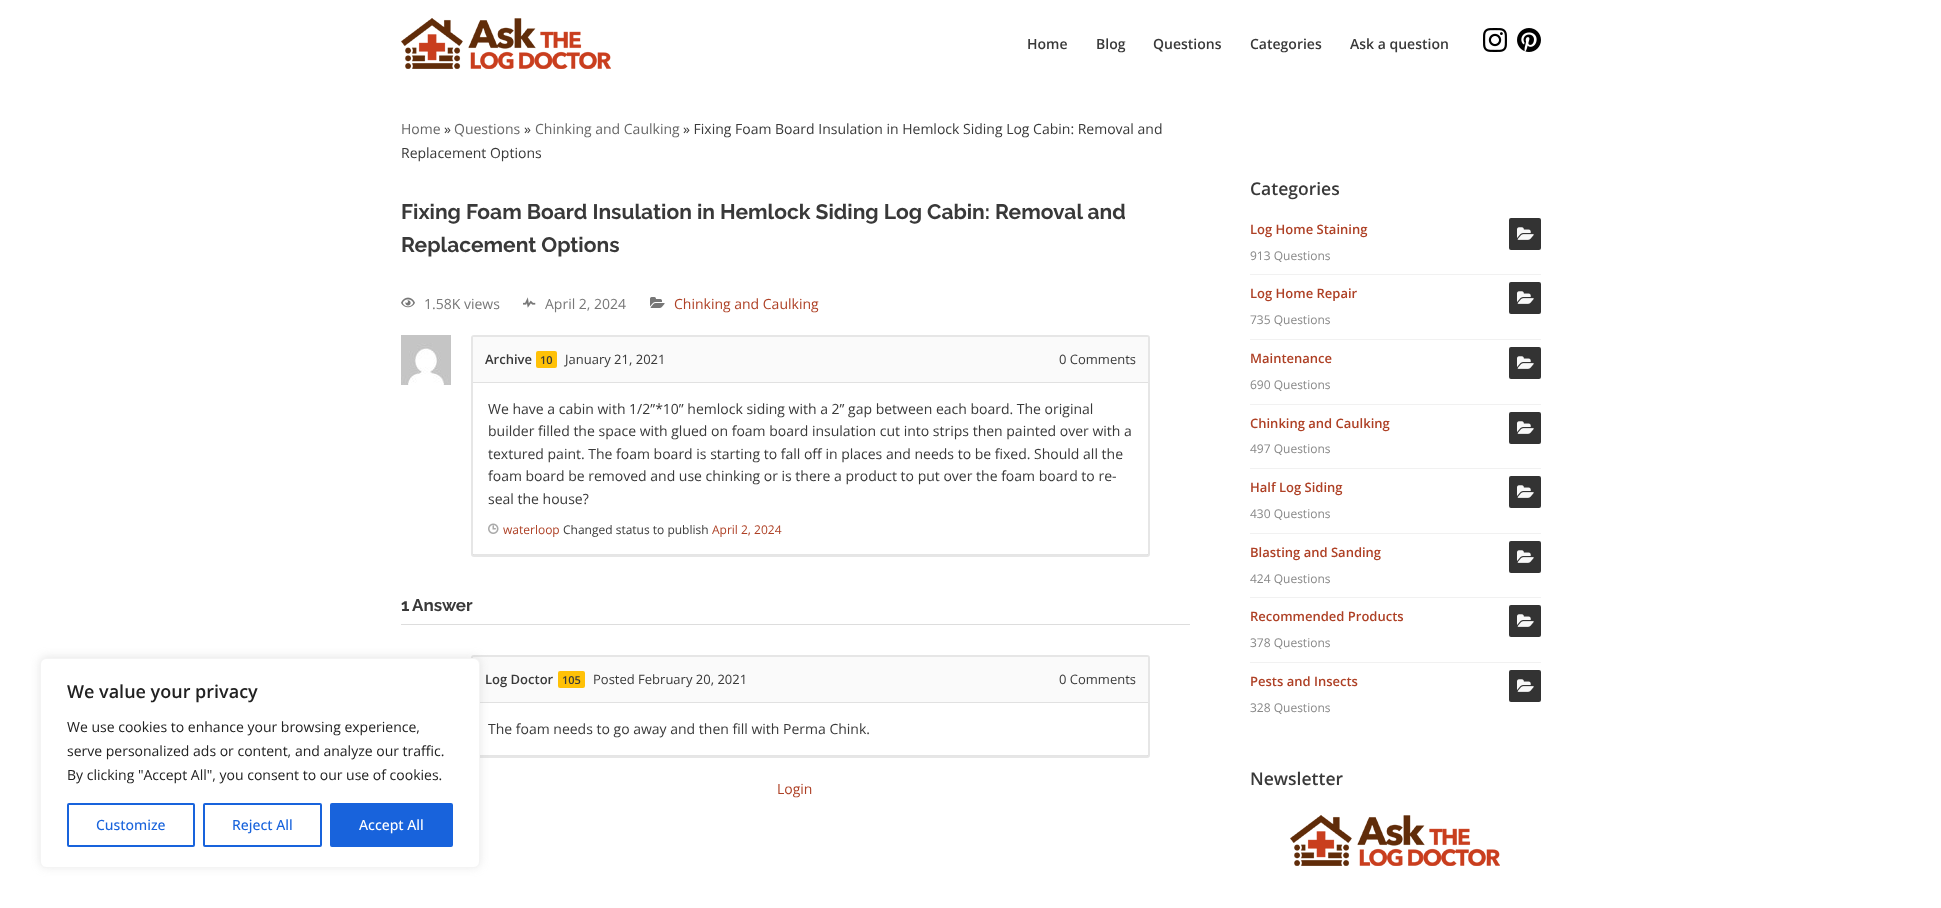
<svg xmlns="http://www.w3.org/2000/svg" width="1941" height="908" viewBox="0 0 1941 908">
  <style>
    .t1 { font: 600 18px Open Sans; fill: #212121; }
    .t2 { font: 14px Open Sans; fill: #212121; }
    .t3 { font: 500 14px Open Sans; fill: #1863dc; }
    .t4 { font: 500 14px Open Sans; fill: #fff; }
    .t5 { font: 600 14px Open Sans; fill: #393939; }
    .t6 { font: 14px Open Sans; fill: #676767; }
    .t7 { font: 14px Open Sans; fill: #393939; }
    .t8 { font: bold 21px Raleway; fill: #393939; }
    .t9 { font: 14px Open Sans; fill: #777; }
    .t10 { font: 14px Open Sans; fill: #ae4025; }
    .t11 { font: 600 13px Open Sans; fill: #393939; }
    .t12 { font: 600 11px Open Sans; fill: #393939; }
    .t13 { font: 13px Open Sans; fill: #393939; }
    .t14 { font: 12px Open Sans; fill: #ae4025; }
    .t15 { font: 12px Open Sans; fill: #393939; }
    .t16 { font: bold 17px Raleway; fill: #393939; }
    .t17 { font: 600 17.5px Open Sans; fill: #393939; }
    .t18 { font: 600 13px Open Sans; fill: #ae4025; }
    .t19 { font: 12px Open Sans; fill: #888; }
  </style>
  <rect width="100%" height="100%" fill="#fff"/>
  <rect x="472" y="656" width="677" height="101" rx="2" fill="none" stroke="#e6e6e6" stroke-width="2"/>
  <rect x="473" y="657" width="675" height="45" fill="#fafafa"/>
  <rect x="473" y="702" width="675" height="1" fill="#e1e1e1"/>
  <rect x="473" y="755" width="675" height="1" fill="#0000001a"/>
  <rect x="40" y="657" width="440" height="210" rx="6" fill="#acabab4d" filter="blur(5px)"/>
  <rect x="40.5" y="658.5" width="439" height="209" rx="5.5" fill="#fff" stroke="#f4f4f4"/>
  <text x="67" y="698" class="t1">We value your privacy</text>
  <text x="67" y="732" class="t2">We use cookies to enhance your browsing experience,</text>
  <text x="67" y="756" class="t2">serve personalized ads or content, and analyze our traffic.</text>
  <text x="67" y="780" class="t2">By clicking "Accept All", you consent to our use of cookies.</text>
  <rect x="68" y="804" width="126" height="42" rx="1" fill="none" stroke="#1863dc" stroke-width="2"/>
  <text x="96" y="830" class="t3">Customize</text>
  <rect x="204" y="804" width="117" height="42" rx="1" fill="none" stroke="#1863dc" stroke-width="2"/>
  <text x="232" y="830" class="t3">Reject All</text>
  <rect x="331" y="804" width="121" height="42" rx="1" fill="#1863dc" stroke="#1863dc" stroke-width="2"/>
  <text x="359" y="830" class="t4">Accept All</text>
  <image x="401" y="18" width="210" height="51" href="images/1.png"/>
  <text x="1027" y="49" class="t5">Home</text>
  <text x="1096" y="49" class="t5">Blog</text>
  <text x="1153" y="49" class="t5">Questions</text>
  <text x="1250" y="49" class="t5">Categories</text>
  <text x="1350" y="49" class="t5">Ask a question</text>
  <image x="1483" y="28" width="24" height="24" href="images/2.png"/>
  <image x="1517" y="28" width="24" height="24" href="images/3.png"/>
  <text x="401" y="134" class="t6">Home</text>
  <text x="444" y="134" class="t7">»</text>
  <text x="454" y="134" class="t6">Questions</text>
  <text x="524" y="134" class="t7">»</text>
  <text x="535" y="134" class="t6">Chinking and Caulking</text>
  <text x="683" y="134" class="t7">» Fixing Foam Board Insulation in Hemlock Siding Log Cabin: Removal and</text>
  <text x="401" y="158" class="t7">Replacement Options</text>
  <text x="401" y="219" class="t8">Fixing Foam Board Insulation in Hemlock Siding Log Cabin: Removal and</text>
  <text x="401" y="252" class="t8">Replacement Options</text>
  <image x="401" y="297" width="14" height="11" href="images/4.png"/>
  <text x="424" y="309" class="t9">1.58K views</text>
  <image x="523" y="297" width="13" height="11" href="images/5.png"/>
  <text x="545" y="309" class="t9">April 2, 2024</text>
  <image x="650" y="297" width="15" height="11" href="images/6.png"/>
  <text x="674" y="309" class="t10">Chinking and Caulking</text>
  <image x="401" y="335" width="50" height="50" href="images/7.png"/>
  <rect x="472" y="336" width="677" height="220" rx="2" fill="none" stroke="#e6e6e6" stroke-width="2"/>
  <rect x="473" y="337" width="675" height="45" fill="#fafafa"/>
  <rect x="473" y="382" width="675" height="1" fill="#e1e1e1"/>
  <text x="485" y="364" class="t11">Archive</text>
  <rect x="536" y="351" width="21" height="17" rx="2" fill="#ffc107"/>
  <text x="540" y="364" class="t12">10</text>
  <text x="565" y="364" class="t13">January 21, 2021</text>
  <text x="1059" y="364" class="t13">0 Comments</text>
  <text x="488" y="414" class="t7">We have a cabin with 1/2”*10” hemlock siding with a 2” gap between each board. The original</text>
  <text x="488" y="436" class="t7">builder filled the space with glued on foam board insulation cut into strips then painted over with a</text>
  <text x="488" y="459" class="t7">textured paint. The foam board is starting to fall off in places and needs to be fixed. Should all the</text>
  <text x="488" y="481" class="t7">foam board be removed and use chinking or is there a product to put over the foam board to re-</text>
  <text x="488" y="504" class="t7">seal the house?</text>
  <image x="488" y="523" width="11" height="11" href="images/8.png"/>
  <text x="503" y="534" class="t14">waterloop</text>
  <text x="563" y="534" class="t15">Changed status to publish</text>
  <text x="712" y="534" class="t14">April 2, 2024</text>
  <rect x="473" y="554" width="675" height="1" fill="#0000001a"/>
  <rect x="401" y="624" width="789" height="1" fill="#ddd"/>
  <text x="401" y="611" class="t16">1</text>
  <text x="412" y="611" class="t16">Answer</text>
  <text x="485" y="684" class="t11">Log Doctor</text>
  <rect x="558" y="671" width="27" height="17" rx="2" fill="#ffc107"/>
  <text x="562" y="684" class="t12">105</text>
  <text x="593" y="684" class="t13">Posted February 20, 2021</text>
  <text x="1059" y="684" class="t13">0 Comments</text>
  <text x="488" y="734" class="t7">The foam needs to go away and then fill with Perma Chink.</text>
  <text x="777" y="794" class="t10">Login</text>
  <text x="1250" y="195" class="t17">Categories</text>
  <rect x="1250" y="274" width="291" height="1" fill="#f1f1f1"/>
  <text x="1250" y="234" class="t18">Log Home Staining</text>
  <rect x="1509" y="218" width="32" height="32" rx="2" fill="#333"/>
  <image x="1517" y="227" width="17" height="13" href="images/9.png"/>
  <text x="1250" y="260" class="t19">913 Questions</text>
  <rect x="1250" y="339" width="291" height="1" fill="#f1f1f1"/>
  <text x="1250" y="298" class="t18">Log Home Repair</text>
  <rect x="1509" y="282" width="32" height="32" rx="2" fill="#333"/>
  <image x="1517" y="291" width="17" height="13" href="images/9.png"/>
  <text x="1250" y="324" class="t19">735 Questions</text>
  <rect x="1250" y="404" width="291" height="1" fill="#f1f1f1"/>
  <text x="1250" y="363" class="t18">Maintenance</text>
  <rect x="1509" y="347" width="32" height="32" rx="2" fill="#333"/>
  <image x="1517" y="356" width="17" height="13" href="images/9.png"/>
  <text x="1250" y="389" class="t19">690 Questions</text>
  <rect x="1250" y="468" width="291" height="1" fill="#f1f1f1"/>
  <text x="1250" y="428" class="t18">Chinking and Caulking</text>
  <rect x="1509" y="412" width="32" height="32" rx="2" fill="#333"/>
  <image x="1517" y="421" width="17" height="13" href="images/9.png"/>
  <text x="1250" y="453" class="t19">497 Questions</text>
  <rect x="1250" y="533" width="291" height="1" fill="#f1f1f1"/>
  <text x="1250" y="492" class="t18">Half Log Siding</text>
  <rect x="1509" y="476" width="32" height="32" rx="2" fill="#333"/>
  <image x="1517" y="485" width="17" height="13" href="images/9.png"/>
  <text x="1250" y="518" class="t19">430 Questions</text>
  <rect x="1250" y="597" width="291" height="1" fill="#f1f1f1"/>
  <text x="1250" y="557" class="t18">Blasting and Sanding</text>
  <rect x="1509" y="541" width="32" height="32" rx="2" fill="#333"/>
  <image x="1517" y="550" width="17" height="13" href="images/9.png"/>
  <text x="1250" y="583" class="t19">424 Questions</text>
  <rect x="1250" y="662" width="291" height="1" fill="#f1f1f1"/>
  <text x="1250" y="621" class="t18">Recommended Products</text>
  <rect x="1509" y="605" width="32" height="32" rx="2" fill="#333"/>
  <image x="1517" y="614" width="17" height="13" href="images/9.png"/>
  <text x="1250" y="647" class="t19">378 Questions</text>
  <text x="1250" y="686" class="t18">Pests and Insects</text>
  <rect x="1509" y="670" width="32" height="32" rx="2" fill="#333"/>
  <image x="1517" y="679" width="17" height="13" href="images/9.png"/>
  <text x="1250" y="712" class="t19">328 Questions</text>
  <text x="1250" y="785" class="t17">Newsletter</text>
  <image x="1290" y="815" width="210" height="51" href="images/1.png"/>
</svg>
